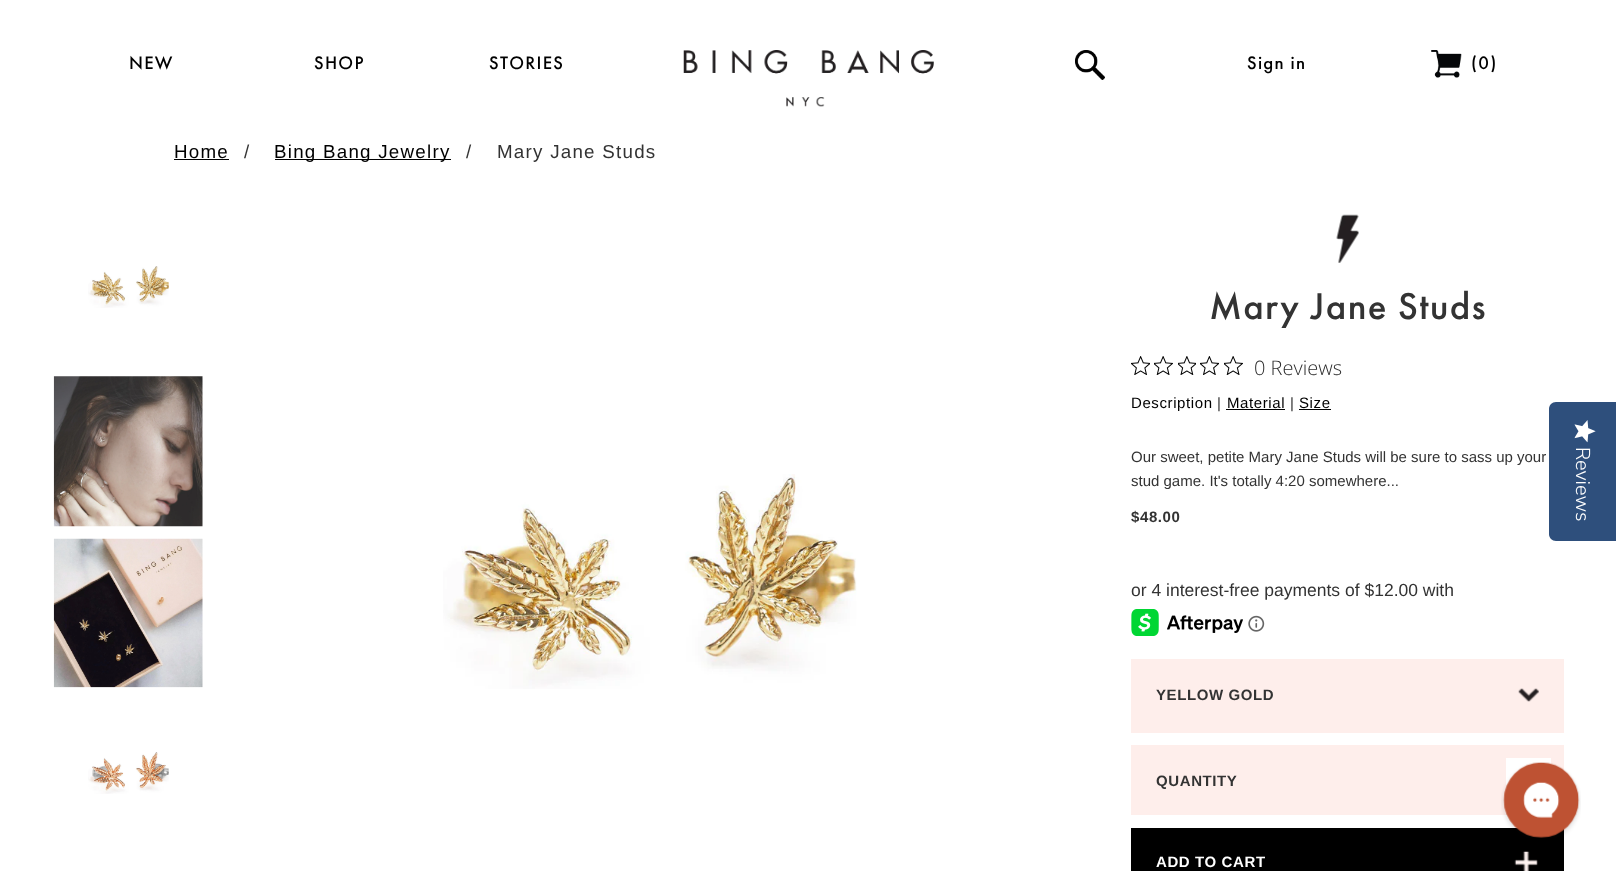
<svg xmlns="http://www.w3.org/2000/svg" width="1616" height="871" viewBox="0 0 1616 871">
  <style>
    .t1 { font: 500 18.75px Futura PT; letter-spacing: 1.25px; fill: #000; }
    .t2 { font: 18.75px Liberation Sans; letter-spacing: 1.25px; fill: #000; }
    .t3 { font: 18.75px Liberation Sans; letter-spacing: 1.25px; fill: #333; }
    .t4 { font: 500 38.75px Futura PT; letter-spacing: 1.25px; fill: #333; }
    .t5 { font: 300 20px Open Sans; fill: #2c2c2c; }
    .t6 { font: 15px Liberation Sans; letter-spacing: 0.6px; fill: #000; }
    .t7 { font: 15px Liberation Sans; letter-spacing: 0.6px; fill: #333; }
    .t8 { font: 15px Liberation Sans; fill: #333; }
    .t9 { font: bold 15px Liberation Sans; letter-spacing: 0.6px; fill: #333; }
    .t10 { font: 17.5px Liberation Sans; fill: #333; }
    .t11 { font: bold 15px Liberation Sans; letter-spacing: 0.6px; fill: #fff; }
    .t12 { font: 300 20px Nunito Sans; fill: #fff; }
  </style>
  <rect width="100%" height="100%" fill="#fff"/>
  <text x="129" y="69" class="t1">NEW</text>
  <text x="314" y="69" class="t1">SHOP</text>
  <text x="489" y="69" class="t1">STORIES</text>
  <image x="683" y="50" width="251" height="57" href="images/1.png"/>
  <image x="1075" y="50" width="30" height="30" href="images/2.png"/>
  <text x="1247" y="69" class="t1">Sign in</text>
  <image x="1431" y="50" width="31" height="28" href="images/3.png"/>
  <text x="1471" y="69" class="t1">(0)</text>
  <text x="174" y="158" class="t2">Home</text>
  <rect x="174" y="159" width="55" height="1" fill="#000"/>
  <text x="244" y="158" class="t3">/</text>
  <rect x="275" y="159" width="176" height="1" fill="#000"/>
  <text x="274" y="158" class="t2">Bing Bang Jewelry</text>
  <text x="466" y="158" class="t3">/</text>
  <text x="497" y="158" class="t3">Mary Jane Studs</text>
  <image x="88" y="266" width="81" height="42" href="images/4.png"/>
  <image x="53" y="376" width="150" height="151" href="images/5.png"/>
  <image x="53" y="538" width="150" height="150" href="images/6.png"/>
  <image x="88" y="752" width="81" height="42" href="images/7.png"/>
  <image x="443" y="474" width="414" height="215" href="images/8.png"/>
  <image x="1336" y="214" width="23" height="49" href="images/9.png"/>
  <text x="1209" y="319" class="t4">Mary Jane Studs</text>
  <image x="1131" y="356" width="19" height="19" href="images/10.png"/>
  <image x="1154" y="356" width="19" height="19" href="images/11.png"/>
  <image x="1178" y="356" width="18" height="19" href="images/12.png"/>
  <image x="1200" y="356" width="19" height="19" href="images/13.png"/>
  <image x="1224" y="356" width="19" height="19" href="images/11.png"/>
  <text x="1254" y="375" class="t5">0 Reviews</text>
  <text x="1131" y="408" class="t6">Description</text>
  <text x="1217" y="408" class="t7">|</text>
  <text x="1227" y="408" class="t6">Material</text>
  <rect x="1226" y="409" width="59" height="1" fill="#000"/>
  <text x="1290" y="408" class="t7">|</text>
  <text x="1299" y="408" class="t6">Size</text>
  <rect x="1299" y="409" width="32" height="1" fill="#000"/>
  <text x="1131" y="462" class="t8">Our sweet, petite Mary Jane Studs will be sure to sass up your</text>
  <text x="1131" y="486" class="t8">stud game. It's totally 4:20 somewhere...</text>
  <text x="1131" y="522" class="t9">$48.00</text>
  <text x="1131" y="596" class="t10">or 4 interest-free payments of $12.00 with</text>
  <image x="1131" y="609" width="112" height="27" href="images/14.png"/>
  <image x="1248" y="615" width="17" height="17" href="images/15.png"/>
  <rect x="1131" y="659" width="433" height="74" fill="#feeeeb"/>
  <image x="1518" y="688" width="21" height="14" href="images/16.png"/>
  <text x="1156" y="700" class="t9">YELLOW GOLD</text>
  <rect x="1131" y="745" width="433" height="70" fill="#feeeeb"/>
  <text x="1156" y="786" class="t9">QUANTITY</text>
  <rect x="1506" y="758" width="45" height="33" fill="#fff"/>
  <rect x="1131" y="828" width="433" height="43" fill="#000"/>
  <text x="1156" y="867" class="t11">ADD TO CART</text>
  <image x="1514" y="851" width="24" height="20" href="images/17.png"/>
  <path d="M1616 402V541H1556C1552 541 1549 538 1549 534V409C1549 405 1552 402 1556 402Z" fill="#2e4f7c"/>
  <image x="1574" y="420" width="22" height="23" href="images/18.png"/>
  <text x="1576" y="447" transform="rotate(90 1576 447)" class="t12">Reviews</text>
  <image x="1501" y="762" width="80" height="76" href="images/19.png"/>
</svg>
